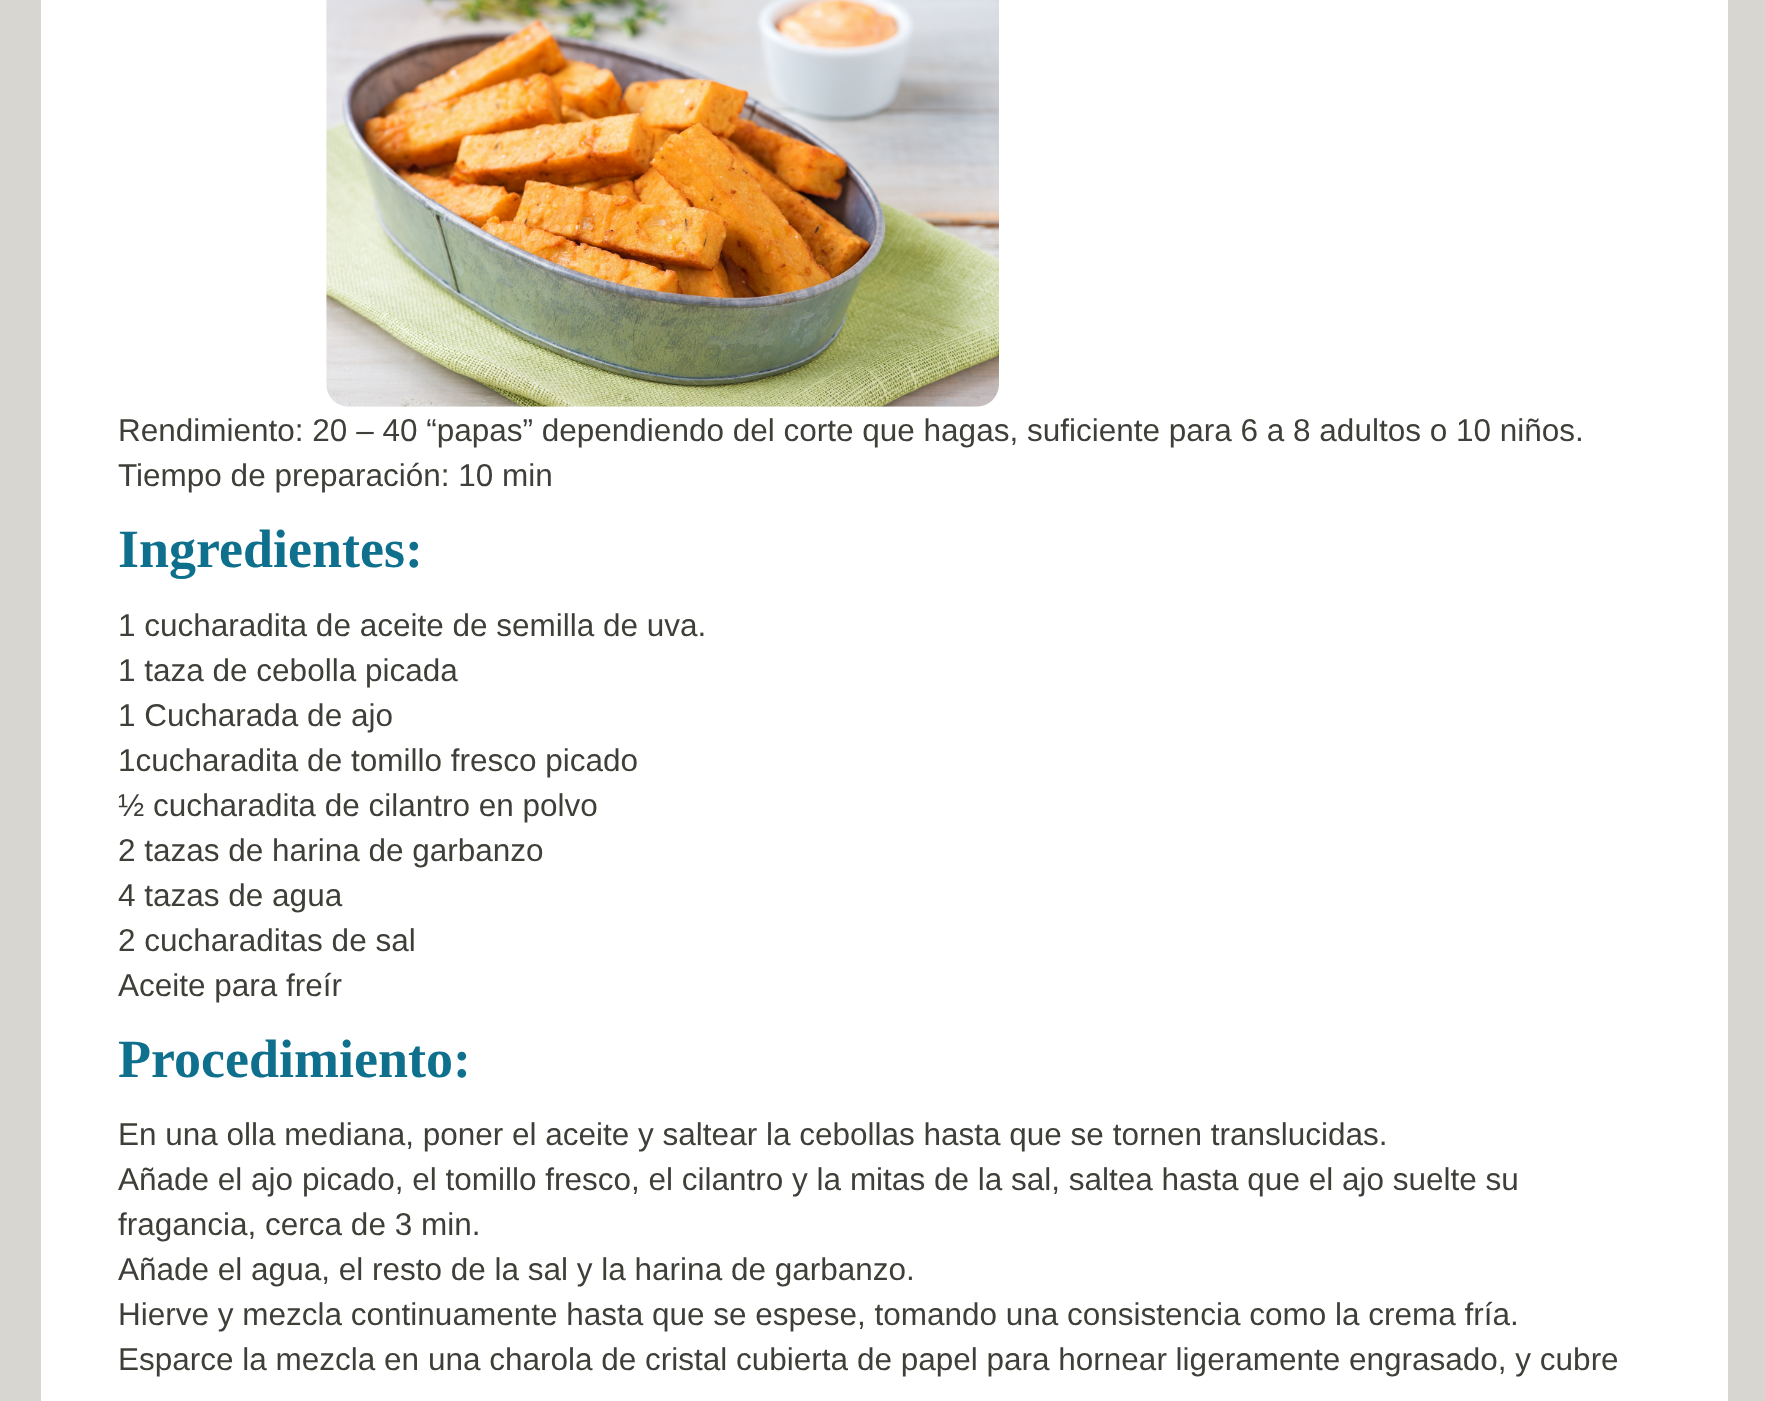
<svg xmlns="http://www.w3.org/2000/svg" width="1765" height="1401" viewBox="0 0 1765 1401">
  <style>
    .t1 { font: 31.5px Liberation Sans; fill: #3f3f39; }
    .t2 { font: bold 54px Liberation Serif; fill: #0e708d; }
  </style>
  <rect width="100%" height="100%" fill="#d8d6d1"/>
  <rect x="41" y="0" width="1687" height="1401" fill="#fff"/>
  <image x="326" y="0" width="673" height="407" href="images/1.png"/>
  <text x="118" y="441" class="t1">Rendimiento: 20 – 40 “papas” dependiendo del corte que hagas, suficiente para 6 a 8 adultos o 10 niños.</text>
  <text x="118" y="486" class="t1">Tiempo de preparación: 10 min</text>
  <text x="118" y="567" class="t2">Ingredientes:</text>
  <text x="118" y="636" class="t1">1 cucharadita de aceite de semilla de uva.</text>
  <text x="118" y="681" class="t1">1 taza de cebolla picada</text>
  <text x="118" y="726" class="t1">1 Cucharada de ajo</text>
  <text x="118" y="771" class="t1">1cucharadita de tomillo fresco picado</text>
  <text x="118" y="816" class="t1">½ cucharadita de cilantro en polvo</text>
  <text x="118" y="861" class="t1">2 tazas de harina de garbanzo</text>
  <text x="118" y="906" class="t1">4 tazas de agua</text>
  <text x="118" y="951" class="t1">2 cucharaditas de sal</text>
  <text x="118" y="996" class="t1">Aceite para freír</text>
  <text x="118" y="1077" class="t2">Procedimiento:</text>
  <text x="118" y="1145" class="t1">En una olla mediana, poner el aceite y saltear la cebollas hasta que se tornen translucidas.</text>
  <text x="118" y="1190" class="t1">Añade el ajo picado, el tomillo fresco, el cilantro y la mitas de la sal, saltea hasta que el ajo suelte su</text>
  <text x="118" y="1235" class="t1">fragancia, cerca de 3 min.</text>
  <text x="118" y="1280" class="t1">Añade el agua, el resto de la sal y la harina de garbanzo.</text>
  <text x="118" y="1325" class="t1">Hierve y mezcla continuamente hasta que se espese, tomando una consistencia como la crema fría.</text>
  <text x="118" y="1370" class="t1">Esparce la mezcla en una charola de cristal cubierta de papel para hornear ligeramente engrasado, y cubre</text>
</svg>
